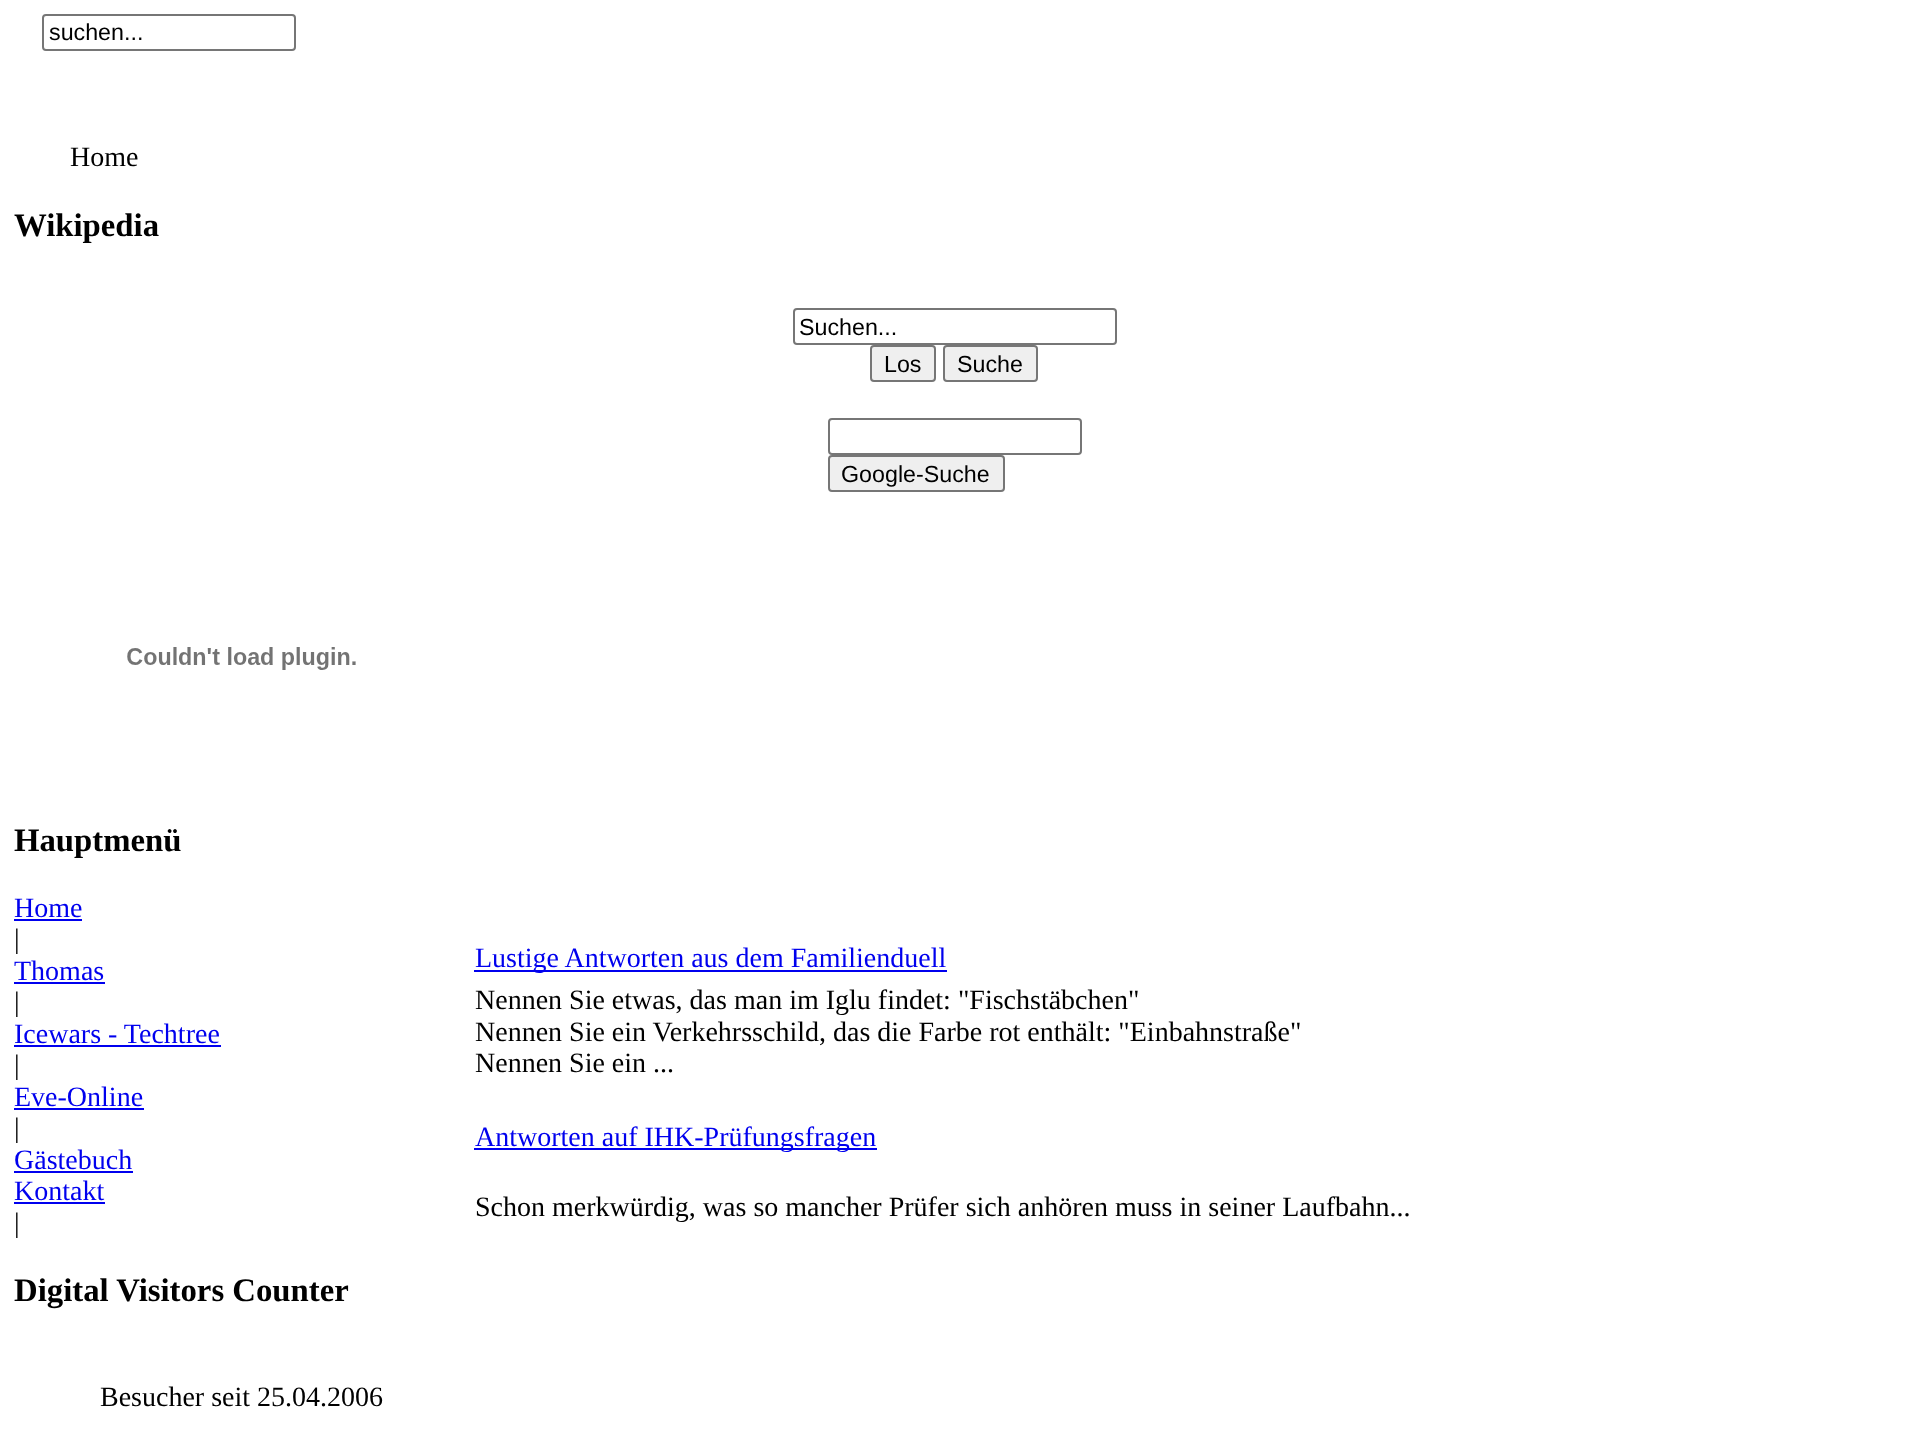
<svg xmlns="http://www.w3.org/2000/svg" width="1907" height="1451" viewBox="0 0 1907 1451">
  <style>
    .t1 { font: 23.25px Liberation Sans; fill: #000; }
    .t2 { font: 28px Liberation Serif; fill: #000; }
    .t3 { font: bold 32.75px Liberation Serif; fill: #000; }
    .t4 { font: 28px Liberation Serif; fill: #00e; }
  </style>
  <rect width="100%" height="100%" fill="#fff"/>
  <rect x="43" y="15" width="252" height="35" rx="3" fill="none" stroke="#767676" stroke-width="2"/>
  <text x="49" y="40" class="t1">suchen...</text>
  <text x="70" y="166" class="t2">Home</text>
  <text x="14" y="236" class="t3">Wikipedia</text>
  <rect x="794" y="309" width="322" height="35" rx="3" fill="none" stroke="#767676" stroke-width="2"/>
  <text x="799" y="335" class="t1">Suchen...</text>
  <rect x="871" y="346" width="64" height="35" rx="3" fill="#efefef" stroke="#767676" stroke-width="2"/>
  <text x="884" y="372" class="t1">Los</text>
  <rect x="944" y="346" width="93" height="35" rx="3" fill="#efefef" stroke="#767676" stroke-width="2"/>
  <text x="957" y="372" class="t1">Suche</text>
  <rect x="829" y="419" width="252" height="35" rx="3" fill="none" stroke="#767676" stroke-width="2"/>
  <rect x="829" y="456" width="175" height="35" rx="3" fill="#efefef" stroke="#767676" stroke-width="2"/>
  <text x="841" y="482" class="t1">Google-Suche</text>
  <image x="127" y="647" width="229" height="23" href="images/1.png"/>
  <text x="14" y="851" class="t3">Hauptmenü</text>
  <text x="14" y="917" class="t4">Home</text>
  <rect x="14" y="919" width="68" height="2" fill="#00e"/>
  <text x="14" y="948" class="t2">|</text>
  <text x="14" y="980" class="t4">Thomas</text>
  <rect x="14" y="982" width="91" height="2" fill="#00e"/>
  <text x="14" y="1011" class="t2">|</text>
  <text x="14" y="1043" class="t4">Icewars - Techtree</text>
  <rect x="14" y="1045" width="207" height="2" fill="#00e"/>
  <text x="14" y="1074" class="t2">|</text>
  <text x="14" y="1106" class="t4">Eve-Online</text>
  <rect x="14" y="1108" width="130" height="2" fill="#00e"/>
  <text x="14" y="1137" class="t2">|</text>
  <text x="14" y="1169" class="t4">Gästebuch</text>
  <rect x="14" y="1171" width="119" height="2" fill="#00e"/>
  <text x="14" y="1200" class="t4">Kontakt</text>
  <rect x="14" y="1202" width="91" height="2" fill="#00e"/>
  <text x="14" y="1232" class="t2">|</text>
  <text x="14" y="1301" class="t3">Digital Visitors Counter</text>
  <text x="100" y="1406" class="t2">Besucher seit 25.04.2006</text>
  <rect x="474" y="970" width="473" height="2" fill="#00e"/>
  <text x="475" y="967" class="t4">Lustige Antworten aus dem Familienduell</text>
  <text x="475" y="1009" class="t2">Nennen Sie etwas, das man im Iglu findet: "Fischstäbchen"</text>
  <text x="475" y="1041" class="t2">Nennen Sie ein Verkehrsschild, das die Farbe rot enthält: "Einbahnstraße"</text>
  <text x="475" y="1072" class="t2">Nennen Sie ein ...</text>
  <rect x="474" y="1148" width="403" height="2" fill="#00e"/>
  <text x="475" y="1146" class="t4">Antworten auf IHK-Prüfungsfragen</text>
  <text x="475" y="1216" class="t2">Schon merkwürdig, was so mancher Prüfer sich anhören muss in seiner Laufbahn...</text>
</svg>
